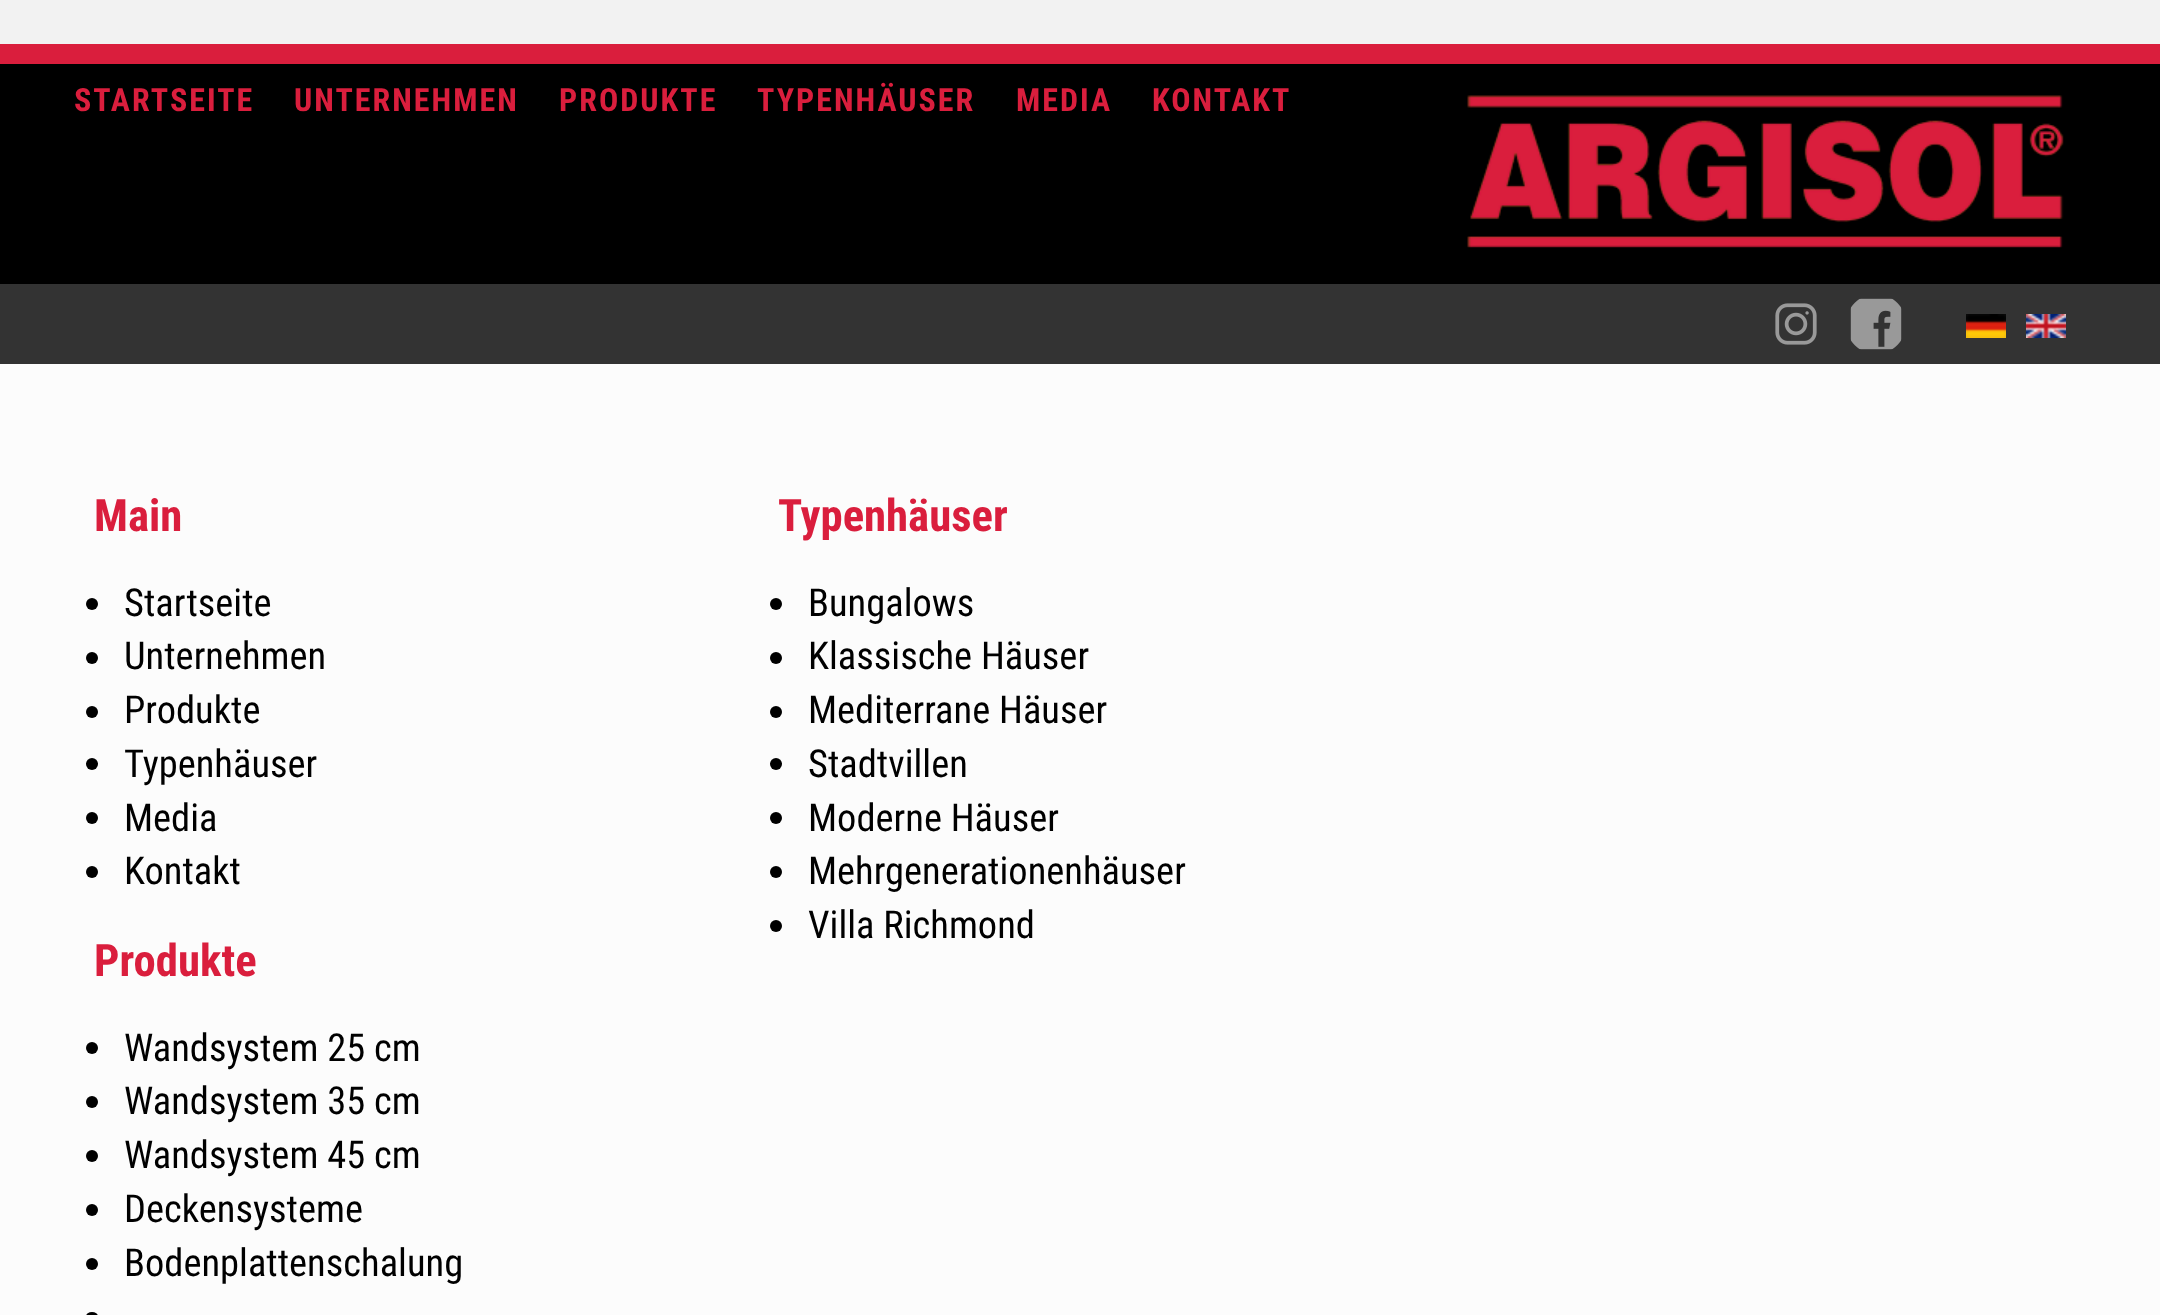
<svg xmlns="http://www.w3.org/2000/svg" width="2160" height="1315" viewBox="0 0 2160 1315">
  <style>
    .t1 { font: bold 32px Roboto Condensed; letter-spacing: 2px; fill: #da1e3d; }
    .t2 { font: bold 44.75px Roboto Condensed; fill: #da1e3d; }
    .t3 { font: 38.5px Roboto Condensed; fill: #000; }
  </style>
  <rect width="100%" height="100%" fill="#f2f2f2"/>
  <rect x="0" y="64" width="2160" height="220" fill="#000"/>
  <rect x="0" y="44" width="2160" height="20" fill="#da1e3d"/>
  <rect x="0" y="284" width="2160" height="80" fill="#333"/>
  <text x="74" y="111" class="t1">STARTSEITE</text>
  <text x="294" y="111" class="t1">UNTERNEHMEN</text>
  <text x="559" y="111" class="t1">PRODUKTE</text>
  <text x="757" y="111" class="t1">TYPENHÄUSER</text>
  <text x="1016" y="111" class="t1">MEDIA</text>
  <text x="1152" y="111" class="t1">KONTAKT</text>
  <image x="1467" y="95" width="597" height="153" href="images/1.png"/>
  <image x="1775" y="303" width="42" height="42" href="images/2.png"/>
  <image x="1850" y="298" width="52" height="52" href="images/3.png"/>
  <image x="1966" y="314" width="40" height="24" href="images/4.png"/>
  <image x="2026" y="314" width="40" height="24" href="images/5.png"/>
  <rect x="0" y="364" width="2160" height="951" fill="#fcfcfc"/>
  <text x="94" y="531" class="t2">Main</text>
  <circle cx="92" cy="604" r="6" fill="#000"/>
  <text x="124" y="616" class="t3">Startseite</text>
  <circle cx="92" cy="658" r="6" fill="#000"/>
  <text x="124" y="669" class="t3">Unternehmen</text>
  <circle cx="92" cy="712" r="6" fill="#000"/>
  <text x="124" y="723" class="t3">Produkte</text>
  <circle cx="92" cy="764" r="6" fill="#000"/>
  <text x="124" y="777" class="t3">Typenhäuser</text>
  <circle cx="92" cy="818" r="6" fill="#000"/>
  <text x="124" y="831" class="t3">Media</text>
  <circle cx="92" cy="872" r="6" fill="#000"/>
  <text x="124" y="884" class="t3">Kontakt</text>
  <text x="94" y="976" class="t2">Produkte</text>
  <circle cx="92" cy="1048" r="6" fill="#000"/>
  <text x="124" y="1061" class="t3">Wandsystem 25 cm</text>
  <circle cx="92" cy="1102" r="6" fill="#000"/>
  <text x="124" y="1114" class="t3">Wandsystem 35 cm</text>
  <circle cx="92" cy="1156" r="6" fill="#000"/>
  <text x="124" y="1168" class="t3">Wandsystem 45 cm</text>
  <circle cx="92" cy="1210" r="6" fill="#000"/>
  <text x="124" y="1222" class="t3">Deckensysteme</text>
  <circle cx="92" cy="1264" r="6" fill="#000"/>
  <text x="124" y="1276" class="t3">Bodenplattenschalung</text>
  <rect x="86" y="1312" width="12" height="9" rx="6" fill="#000"/>
  <text x="778" y="531" class="t2">Typenhäuser</text>
  <circle cx="776" cy="604" r="6" fill="#000"/>
  <text x="808" y="616" class="t3">Bungalows</text>
  <circle cx="776" cy="658" r="6" fill="#000"/>
  <text x="808" y="669" class="t3">Klassische Häuser</text>
  <circle cx="776" cy="712" r="6" fill="#000"/>
  <text x="808" y="723" class="t3">Mediterrane Häuser</text>
  <circle cx="776" cy="764" r="6" fill="#000"/>
  <text x="808" y="777" class="t3">Stadtvillen</text>
  <circle cx="776" cy="818" r="6" fill="#000"/>
  <text x="808" y="831" class="t3">Moderne Häuser</text>
  <circle cx="776" cy="872" r="6" fill="#000"/>
  <text x="808" y="884" class="t3">Mehrgenerationenhäuser</text>
  <circle cx="776" cy="926" r="6" fill="#000"/>
  <text x="808" y="938" class="t3">Villa Richmond</text>
</svg>
